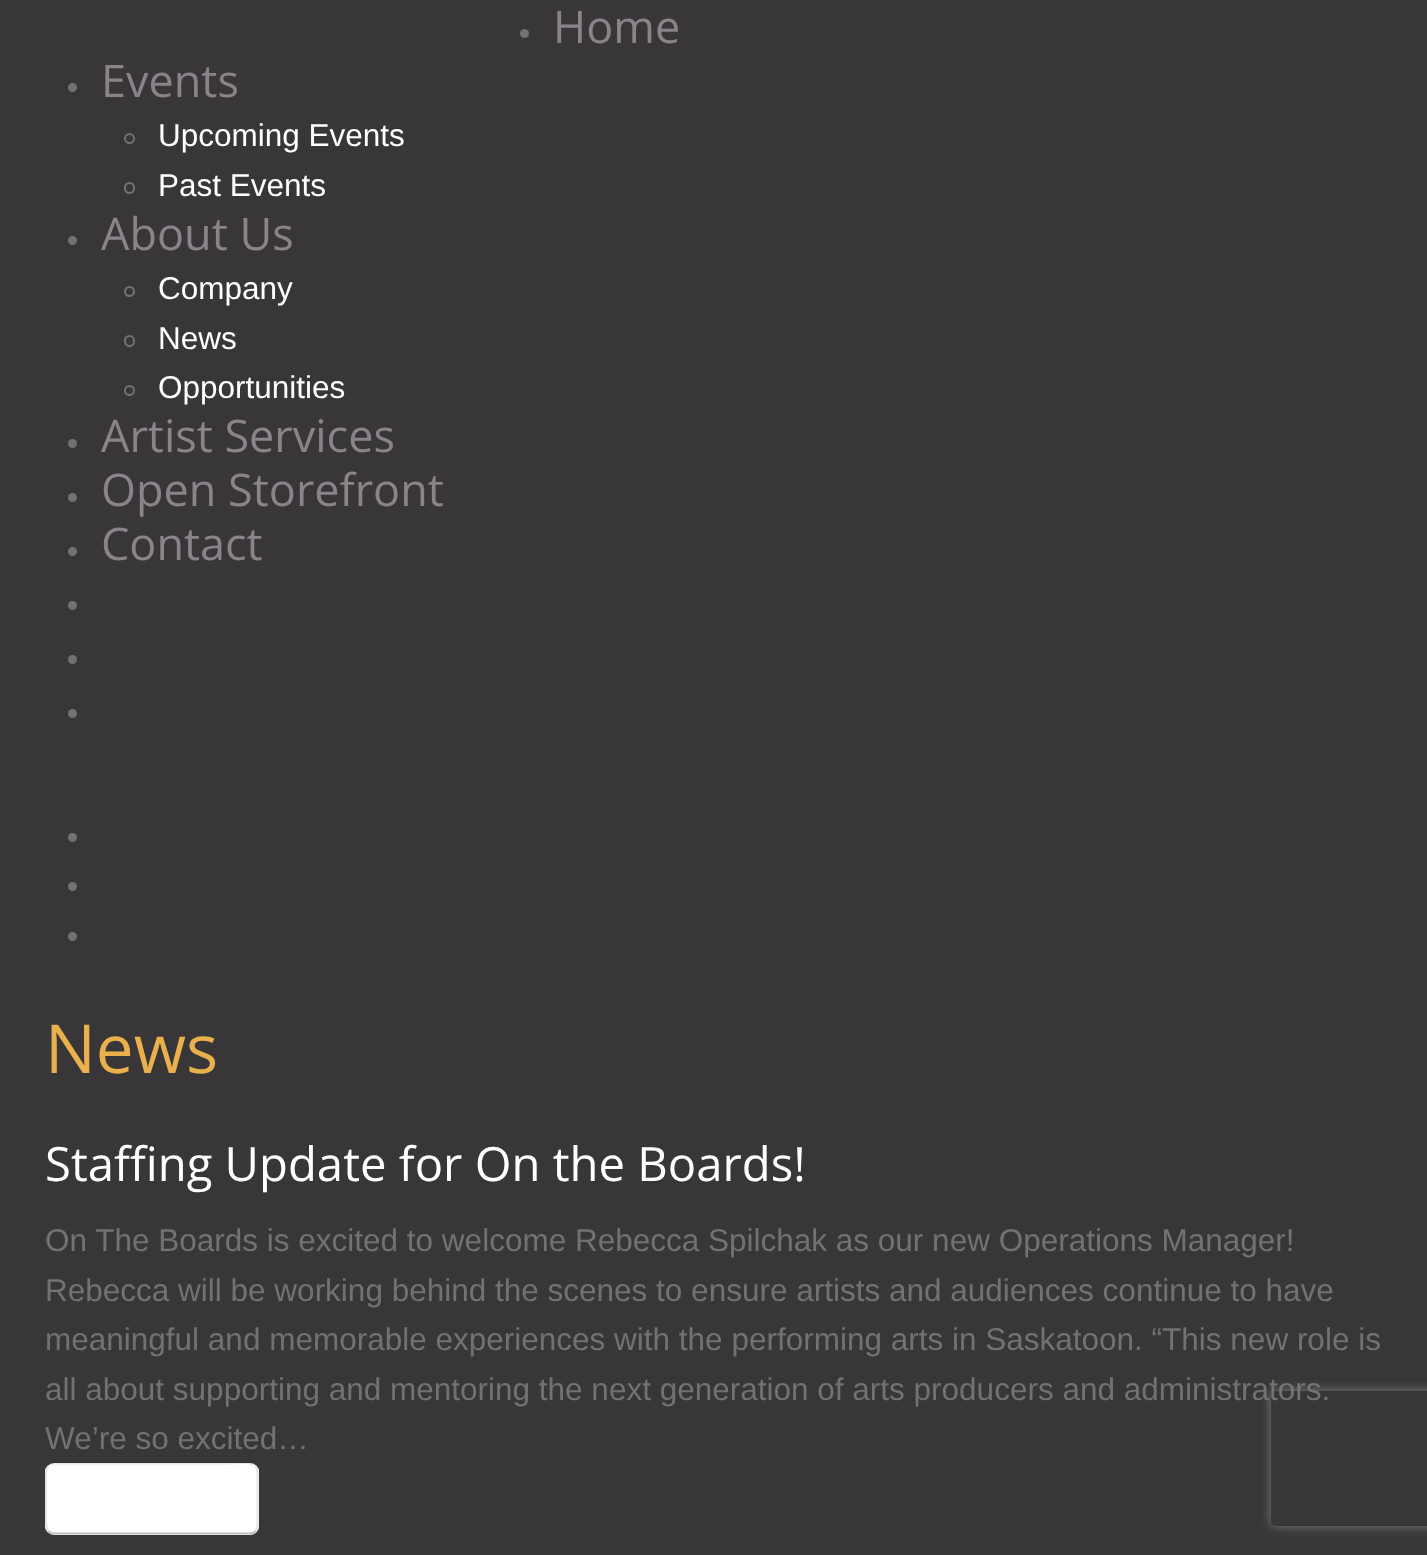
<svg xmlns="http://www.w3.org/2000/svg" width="1427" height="1555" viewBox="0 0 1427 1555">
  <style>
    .t1 { font: 45px Open Sans; fill: #8a838b; }
    .t2 { font: 31.5px Liberation Sans; fill: #fff; }
    .t3 { font: 67.5px Open Sans; fill: #e9b04d; }
    .t4 { font: 47.25px Open Sans; fill: #fff; }
    .t5 { font: 31.5px Liberation Sans; fill: #727176; }
  </style>
  <defs>
    <clipPath id="clip1"><rect x="45" y="1463" width="214" height="72" rx="9"/></clipPath>
    <clipPath id="clip2"><path d="M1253 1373H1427V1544H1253ZM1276 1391H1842C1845 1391 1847 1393 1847 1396V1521C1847 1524 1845 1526 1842 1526H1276C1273 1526 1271 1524 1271 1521V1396C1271 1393 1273 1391 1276 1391Z" clip-rule="evenodd"/></clipPath>
  </defs>
  <rect width="100%" height="100%" fill="#383636"/>
  <circle cx="524.5" cy="33.5" r="4.5" fill="#727176"/>
  <text x="553" y="43" class="t1">Home</text>
  <circle cx="72.5" cy="87.5" r="4.5" fill="#727176"/>
  <text x="101" y="97" class="t1">Events</text>
  <circle cx="129.5" cy="138.5" r="4.5" fill="none" stroke="#727176" stroke-width="2"/>
  <text x="158" y="146" class="t2">Upcoming Events</text>
  <rect x="125" y="183" width="9" height="10" rx="4.5" fill="none" stroke="#727176" stroke-width="2"/>
  <text x="158" y="196" class="t2">Past Events</text>
  <circle cx="72.5" cy="240.5" r="4.5" fill="#727176"/>
  <text x="101" y="250" class="t1">About Us</text>
  <circle cx="129.5" cy="291.5" r="4.5" fill="none" stroke="#727176" stroke-width="2"/>
  <text x="158" y="299" class="t2">Company</text>
  <rect x="125" y="336" width="9" height="10" rx="4.5" fill="none" stroke="#727176" stroke-width="2"/>
  <text x="158" y="349" class="t2">News</text>
  <circle cx="129.5" cy="390.5" r="4.5" fill="none" stroke="#727176" stroke-width="2"/>
  <text x="158" y="398" class="t2">Opportunities</text>
  <circle cx="72.5" cy="443.5" r="4.5" fill="#727176"/>
  <text x="101" y="452" class="t1">Artist Services</text>
  <circle cx="72.5" cy="497.5" r="4.5" fill="#727176"/>
  <text x="101" y="506" class="t1">Open Storefront</text>
  <circle cx="72.5" cy="551.5" r="4.5" fill="#727176"/>
  <text x="101" y="560" class="t1">Contact</text>
  <circle cx="72.5" cy="605.5" r="4.5" fill="#727176"/>
  <circle cx="72.5" cy="659.5" r="4.5" fill="#727176"/>
  <circle cx="72.5" cy="713.5" r="4.5" fill="#727176"/>
  <circle cx="72.5" cy="837.5" r="4.5" fill="#727176"/>
  <circle cx="72.5" cy="886.5" r="4.5" fill="#727176"/>
  <circle cx="72.5" cy="936.5" r="4.5" fill="#727176"/>
  <text x="45" y="1073" class="t3">News</text>
  <text x="45" y="1181" class="t4">Staffing Update for On the Boards!</text>
  <text x="45" y="1251" class="t5">On The Boards is excited to welcome Rebecca Spilchak as our new Operations Manager!</text>
  <text x="45" y="1301" class="t5">Rebecca will be working behind the scenes to ensure artists and audiences continue to have</text>
  <text x="45" y="1350" class="t5">meaningful and memorable experiences with the performing arts in Saskatoon. “This new role is</text>
  <text x="45" y="1400" class="t5">all about supporting and mentoring the next generation of arts producers and administrators.</text>
  <text x="45" y="1449" class="t5">We’re so excited…</text>
  <rect x="45" y="1463" width="214" height="72" rx="9" fill="#fff"/>
  <g clip-path="url(#clip1)">
    <rect x="45" y="1465" width="214" height="67" fill="#fff"/>
  </g>
  <path d="M255.5 1531C254 1532.5 252 1533.5 250 1533.5H54C52 1533.5 50 1532.5 48.5 1531" fill="none" stroke="#00000040" stroke-width="2.2"/>
  <path d="M48.5 1531C45 1527.5 46 1521 46 1516.5V1480.5C46 1474.5 44.5 1463.5 54 1463.5H217C263 1463.5 257.5 1456 257.5 1498.5V1516.5C257.5 1521 259 1527.5 255.5 1531" fill="none" stroke="#0000001a" stroke-width="2.2"/>
  <g clip-path="url(#clip2)">
    <rect x="1271" y="1391" width="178" height="135" rx="5" fill="#808080" filter="blur(5.5px)"/>
  </g>
</svg>
